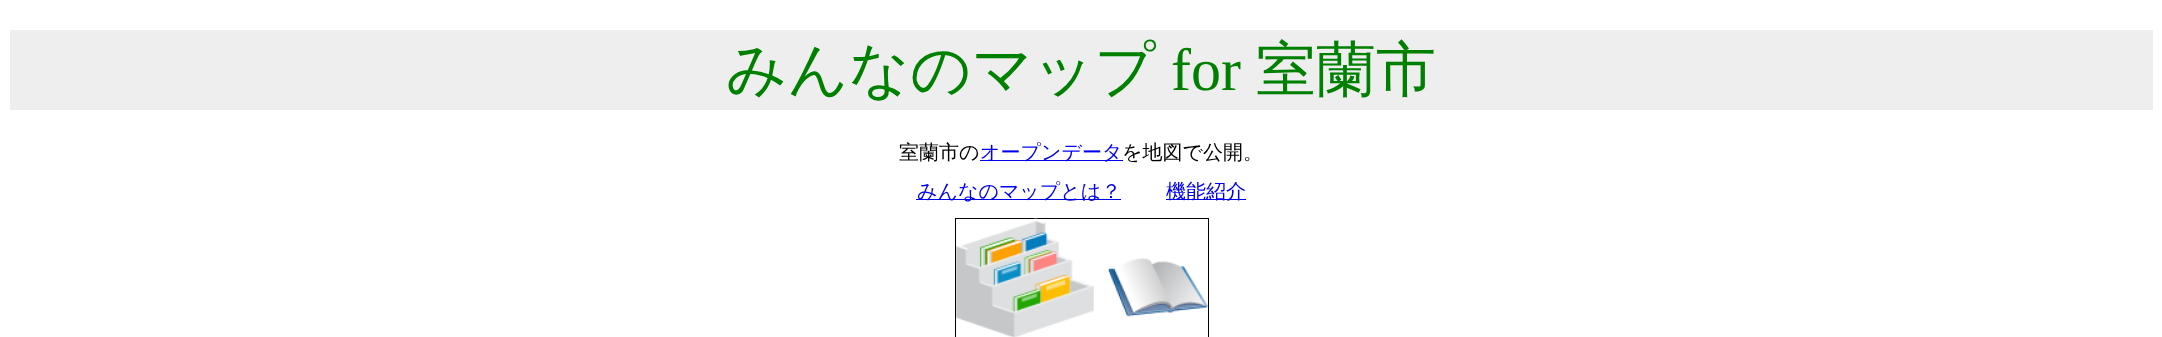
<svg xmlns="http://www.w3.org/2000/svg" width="2162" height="337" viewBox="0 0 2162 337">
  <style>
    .t1 { font: 500 60px WenQuanYi Zen Hei; fill: #008000; }
    .t2 { font: 60px Liberation Serif; fill: #008000; }
    .t3 { font: 500 20px WenQuanYi Zen Hei; fill: #000; }
    .t4 { font: 500 20px WenQuanYi Zen Hei; fill: #00e; }
  </style>
  <rect width="100%" height="100%" fill="#fff"/>
  <rect x="10" y="30" width="2143" height="80" fill="#eee"/>
  <text x="726" y="90" class="t1">みんなのマップ</text>
  <text x="1171" y="90" class="t2">for</text>
  <text x="1256" y="90" class="t1">室蘭市</text>
  <text x="899" y="159" class="t3">室蘭市の</text>
  <rect x="980" y="160" width="143" height="1" fill="#00e"/>
  <text x="980" y="159" class="t4">オープンデータ</text>
  <text x="1122" y="159" class="t3">を地図で公開。</text>
  <rect x="916" y="199" width="205" height="1" fill="#00e"/>
  <text x="917" y="198" class="t4">みんなのマップとは？</text>
  <rect x="1166" y="199" width="80" height="1" fill="#00e"/>
  <text x="1166" y="198" class="t4">機能紹介</text>
  <rect x="955.5" y="218.5" width="253" height="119" fill="none" stroke="#000"/>
  <image x="956" y="218" width="252" height="119" href="images/1.png"/>
</svg>
